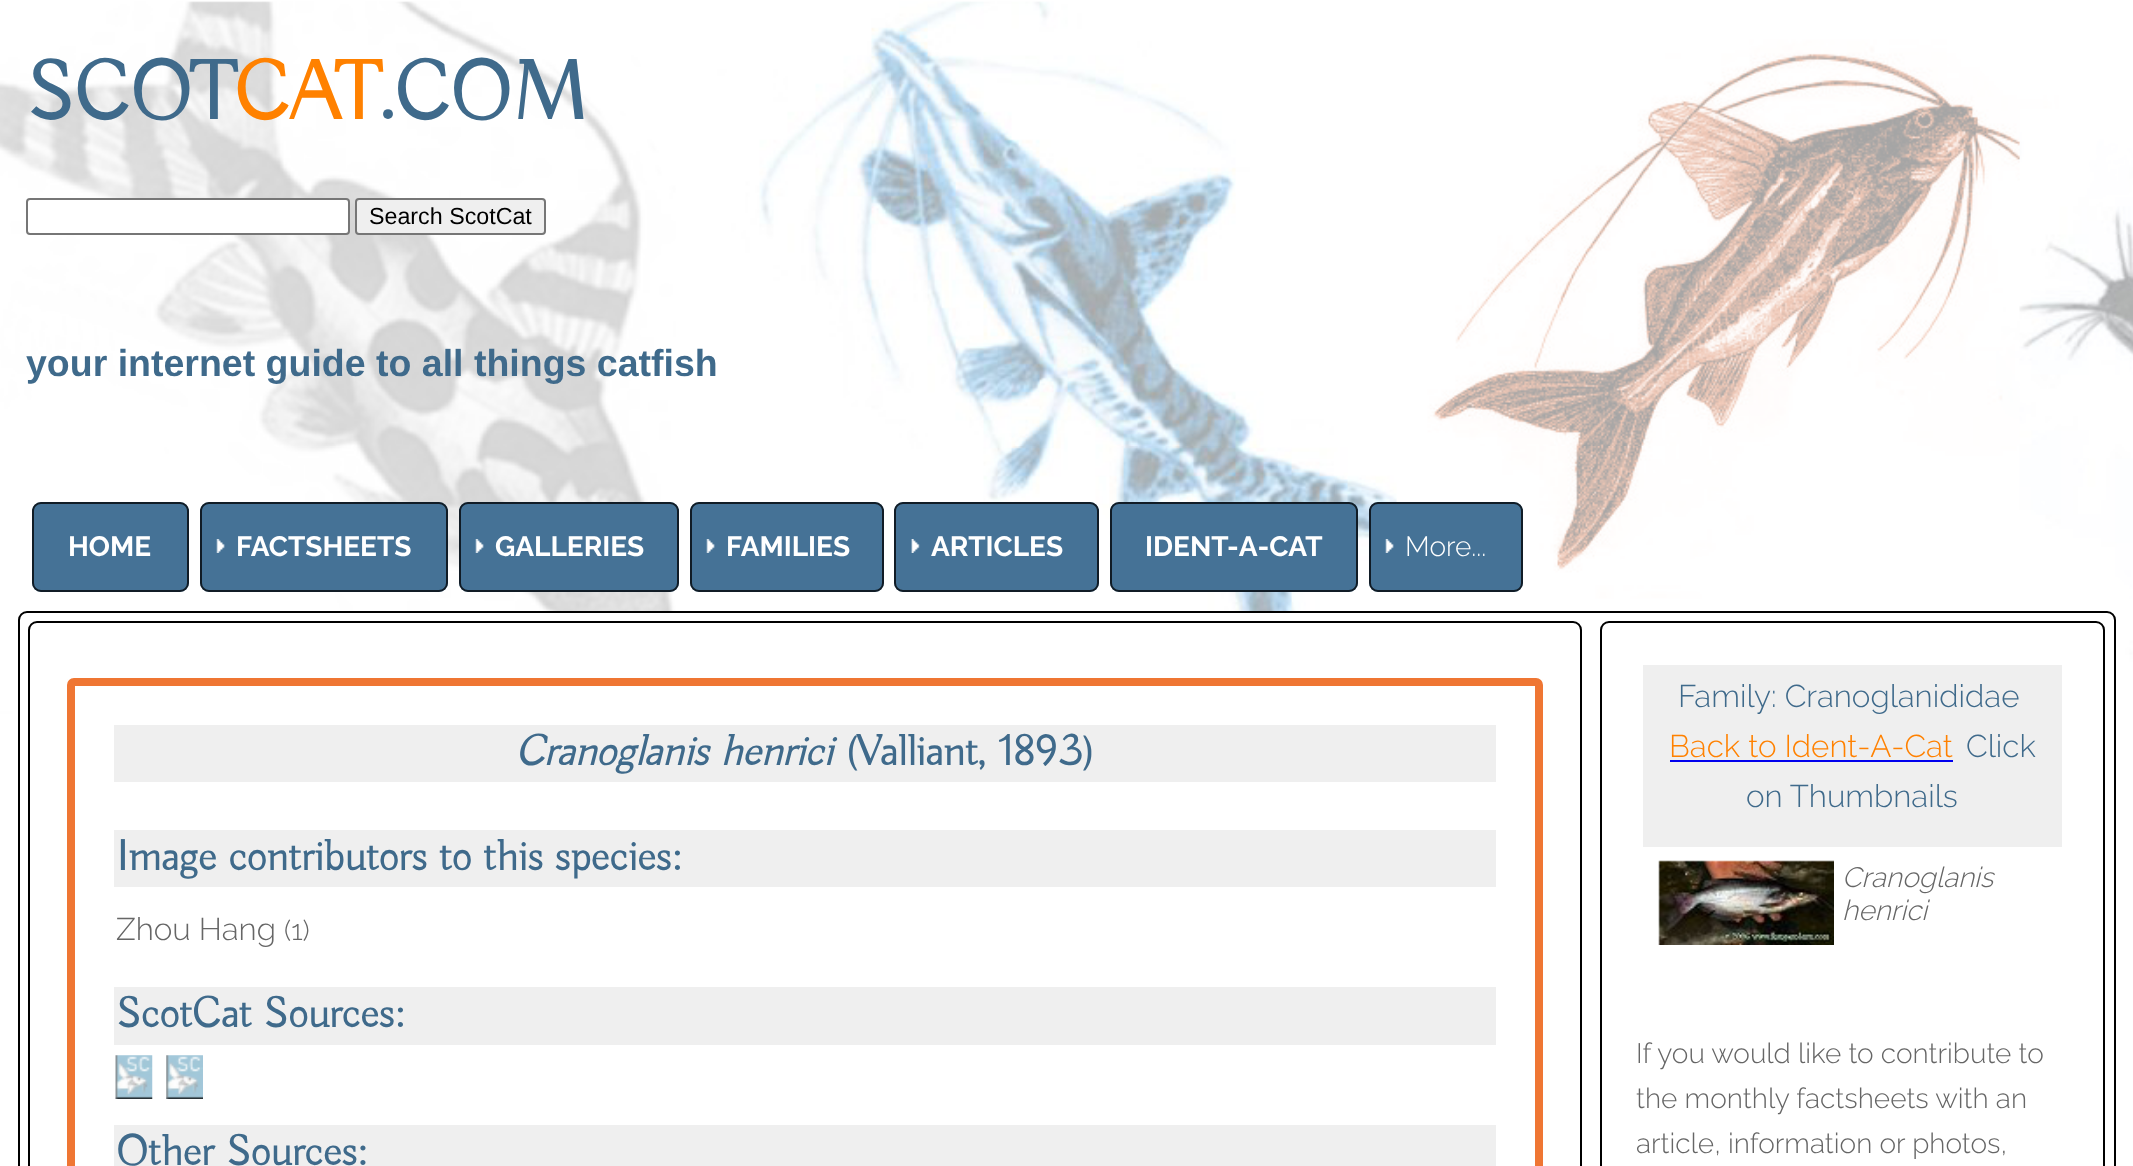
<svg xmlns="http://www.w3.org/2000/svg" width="2133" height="1166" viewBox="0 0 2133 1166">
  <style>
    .t1 { font: bold 84px Buda; fill: #3f6a8b; }
    .t2 { font: bold 84px Buda; fill: #ff8100; }
    .t3 { font: 23.25px Liberation Sans; fill: #000; }
    .t4 { font: bold 37.5px Liberation Sans; fill: #3f6a8b; }
    .t5 { font: bold 28px Raleway; fill: #fff; }
    .t6 { font: 300 28px Raleway; fill: #fff; }
    .t7 { font: italic bold 43.4px Buda; fill: #3f6a8b; }
    .t8 { font: bold 43.4px Buda; fill: #3f6a8b; }
    .t9 { font: 300 31.4px Raleway; fill: #666; }
    .t10 { font: 300 28px Raleway; fill: #666; }
    .t11 { font: 300 31.4px Raleway; fill: #3f6a8b; }
    .t12 { font: 300 31.4px Raleway; fill: #ff8100; }
    .t13 { font: italic 300 28px Raleway; fill: #666; }
  </style>
  <rect width="100%" height="100%" fill="#fff"/>
  <image x="0" y="1" width="2133" height="713" href="images/1.png"/>
  <text x="26" y="119" class="t1">SCOT</text>
  <text x="234" y="119" class="t2">CAT</text>
  <text x="376" y="119" class="t1">.COM</text>
  <rect x="27" y="199" width="322" height="35" rx="3" fill="#fff" stroke="#767676" stroke-width="2"/>
  <rect x="356" y="199" width="189" height="35" rx="3" fill="#efefef" stroke="#767676" stroke-width="2"/>
  <text x="369" y="224" class="t3">Search ScotCat</text>
  <text x="26" y="376" class="t4">your internet guide to all things catfish</text>
  <rect x="32" y="502" width="157" height="90" rx="9" fill="#457296"/>
  <rect x="33" y="503" width="155" height="88" rx="8" fill="none" stroke="#000000bf" stroke-width="2"/>
  <text x="68" y="556" class="t5">HOME</text>
  <rect x="200" y="502" width="248" height="90" rx="9" fill="#457296"/>
  <image x="216" y="539" width="9" height="14" href="images/2.png"/>
  <rect x="201" y="503" width="246" height="88" rx="8" fill="none" stroke="#000000bf" stroke-width="2"/>
  <text x="236" y="556" class="t5">FACTSHEETS</text>
  <rect x="459" y="502" width="220" height="90" rx="9" fill="#457296"/>
  <image x="475" y="539" width="9" height="14" href="images/2.png"/>
  <rect x="460" y="503" width="218" height="88" rx="8" fill="none" stroke="#000000bf" stroke-width="2"/>
  <text x="495" y="556" class="t5">GALLERIES</text>
  <rect x="690" y="502" width="194" height="90" rx="9" fill="#457296"/>
  <image x="706" y="539" width="9" height="14" href="images/3.png"/>
  <rect x="691" y="503" width="192" height="88" rx="8" fill="none" stroke="#000000bf" stroke-width="2"/>
  <text x="726" y="556" class="t5">FAMILIES</text>
  <rect x="894" y="502" width="205" height="90" rx="9" fill="#457296"/>
  <image x="911" y="539" width="9" height="14" href="images/4.png"/>
  <rect x="895" y="503" width="203" height="88" rx="8" fill="none" stroke="#000000bf" stroke-width="2"/>
  <text x="931" y="556" class="t5">ARTICLES</text>
  <rect x="1110" y="502" width="248" height="90" rx="9" fill="#457296"/>
  <rect x="1111" y="503" width="246" height="88" rx="8" fill="none" stroke="#000000bf" stroke-width="2"/>
  <text x="1145" y="556" class="t5">IDENT-A-CAT</text>
  <rect x="1369" y="502" width="154" height="90" rx="9" fill="#457296"/>
  <image x="1385" y="539" width="9" height="14" href="images/2.png"/>
  <rect x="1370" y="503" width="152" height="88" rx="8" fill="none" stroke="#000000bf" stroke-width="2"/>
  <text x="1405" y="556" class="t6">More...</text>
  <rect x="19" y="612" width="2096" height="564" rx="8" fill="#fff" stroke="#000" stroke-width="2"/>
  <rect x="29" y="622" width="1552" height="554" rx="8" fill="none" stroke="#000" stroke-width="2"/>
  <rect x="66" y="677" width="1478" height="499" rx="8" fill="#ef7633" stroke="#fff" stroke-width="2"/>
  <rect x="75" y="686" width="1460" height="480" fill="#fff"/>
  <rect x="114" y="725" width="1382" height="57" fill="#efefef"/>
  <text x="515" y="765" class="t7">Cranoglanis henrici</text>
  <text x="844" y="765" class="t8">(Valliant, 1893)</text>
  <rect x="114" y="830" width="1382" height="57" fill="#efefef"/>
  <text x="116" y="870" class="t8">Image contributors to this species:</text>
  <text x="116" y="940" class="t9">Zhou Hang</text>
  <text x="284" y="940" class="t10">(1)</text>
  <rect x="114" y="987" width="1382" height="58" fill="#efefef"/>
  <text x="116" y="1027" class="t8">ScotCat Sources:</text>
  <image x="115" y="1055" width="38" height="44" href="images/5.png"/>
  <image x="166" y="1055" width="37" height="44" href="images/6.png"/>
  <rect x="114" y="1125" width="1382" height="41" fill="#efefef"/>
  <text x="116" y="1165" class="t8">Other Sources:</text>
  <rect x="1601" y="622" width="503" height="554" rx="8" fill="none" stroke="#000" stroke-width="2"/>
  <rect x="1643" y="665" width="419" height="182" fill="#efefef"/>
  <text x="1678" y="707" class="t11">Family: Cranoglanididae</text>
  <text x="1669" y="757" class="t12">Back to Ident-A-Cat</text>
  <rect x="1670" y="760" width="283" height="2" fill="#00e"/>
  <text x="1966" y="757" class="t11">Click</text>
  <text x="1746" y="807" class="t11">on Thumbnails</text>
  <image x="1658" y="860" width="176" height="85" href="images/7.png"/>
  <text x="1842" y="887" class="t13">Cranoglanis</text>
  <text x="1842" y="920" class="t13">henrici</text>
  <text x="1636" y="1063" class="t10">If you would like to contribute to</text>
  <text x="1636" y="1108" class="t10">the monthly factsheets with an</text>
  <text x="1636" y="1153" class="t10">article, information or photos,</text>
</svg>
